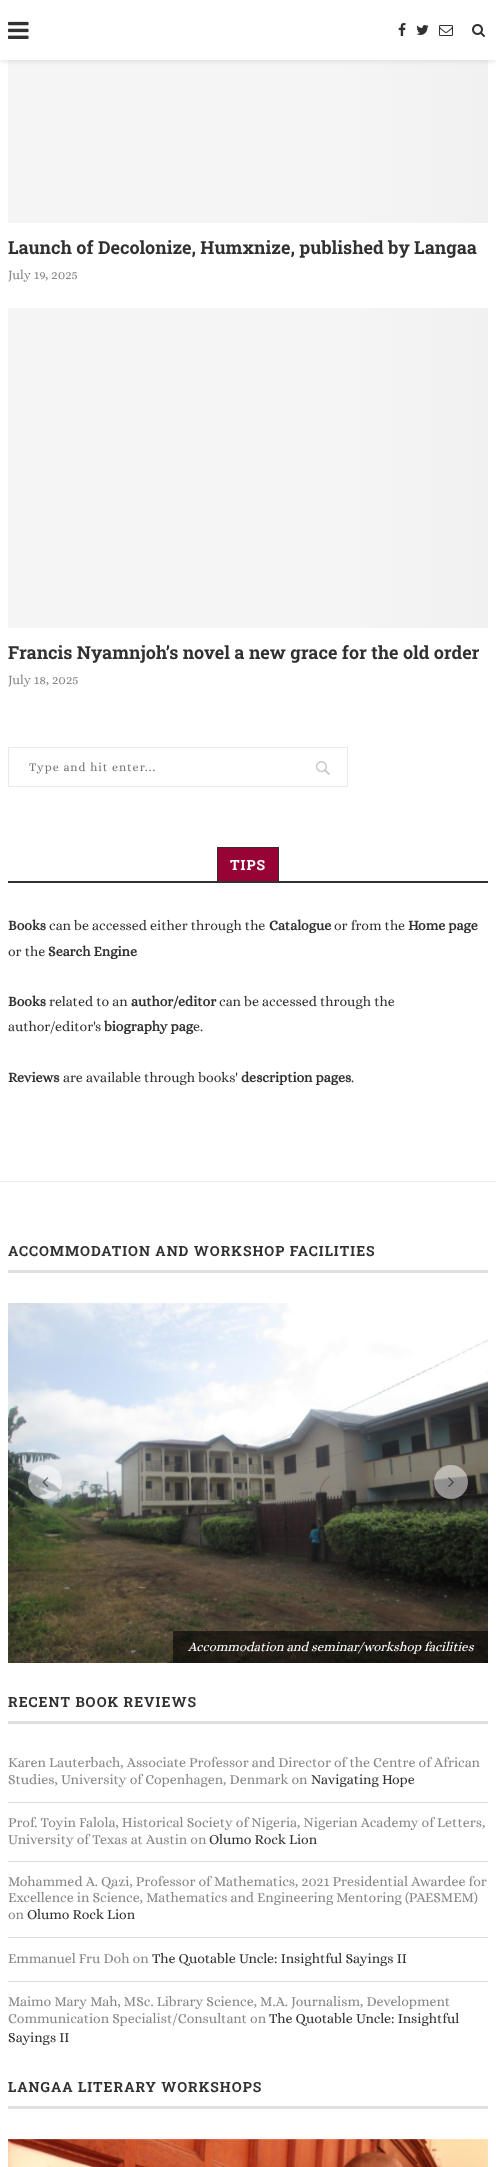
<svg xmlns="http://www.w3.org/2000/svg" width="496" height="2167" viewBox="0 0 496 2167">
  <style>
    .t1 { font: bold 18px Roboto Slab; fill: #313131; }
    .t2 { font: 13px Alice; fill: #888; }
    .t3 { font: 12px Alice; letter-spacing: 1px; fill: #757575; }
    .t4 { font: bold 14px Roboto Slab; letter-spacing: 1px; fill: #fff; }
    .t5 { font: bold 14px Alice; fill: #313131; }
    .t6 { font: 14px Alice; fill: #313131; }
    .t7 { font: bold 14px Roboto Slab; letter-spacing: 1px; fill: #313131; }
    .t8 { font: italic 13px Alice; fill: #fff; }
    .t9 { font: 14px Alice; fill: #888; }
  </style>
  <defs>
    <linearGradient id="g1" gradientUnits="userSpaceOnUse" x1="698" y1="63" x2="-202" y2="63"><stop offset="0" stop-color="#f5f5f5"/><stop offset="0.15" stop-color="#efefef"/><stop offset="0.4" stop-color="#f5f5f5"/><stop offset="1" stop-color="#f5f5f5"/></linearGradient>
    <linearGradient id="g2" gradientUnits="userSpaceOnUse" x1="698" y1="468" x2="-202" y2="468"><stop offset="0" stop-color="#f5f5f5"/><stop offset="0.15" stop-color="#efefef"/><stop offset="0.4" stop-color="#f5f5f5"/><stop offset="1" stop-color="#f5f5f5"/></linearGradient>
  </defs>
  <rect width="100%" height="100%" fill="#fff"/>
  <rect x="8" y="60" width="480" height="163" fill="url(#g1)"/>
  <rect x="0" y="1" width="496" height="60" fill="#bebebe75" filter="blur(2.5px)"/>
  <rect x="0" y="0" width="496" height="60" fill="#fff"/>
  <image x="8" y="21" width="21" height="18" href="images/1.png"/>
  <image x="398" y="23" width="8" height="13" href="images/2.png"/>
  <image x="416" y="25" width="13" height="10" href="images/3.png"/>
  <image x="439" y="25" width="14" height="11" href="images/4.png"/>
  <image x="472" y="24" width="13" height="13" href="images/5.png"/>
  <text x="8" y="254" class="t1">Launch of Decolonize, Humxnize, published by Langaa</text>
  <text x="8" y="279" class="t2">July 19, 2025</text>
  <rect x="8" y="308" width="480" height="320" fill="url(#g2)"/>
  <text x="8" y="659" class="t1">Francis Nyamnjoh’s novel a new grace for the old order</text>
  <text x="8" y="684" class="t2">July 18, 2025</text>
  <image x="316" y="761" width="14" height="14" href="images/6.png"/>
  <rect x="8.5" y="747.5" width="339" height="39" fill="none" stroke="#e9e9e9"/>
  <text x="29" y="771" class="t3">Type and hit enter...</text>
  <rect x="8" y="881" width="480" height="2" fill="#313131"/>
  <rect x="218" y="848" width="60" height="33" fill="#970335"/>
  <rect x="217" y="847" width="62" height="1" fill="#313131"/>
  <rect x="278" y="847" width="1" height="36" fill="#313131"/>
  <rect x="217" y="847" width="1" height="36" fill="#313131"/>
  <text x="230" y="870" class="t4">TIPS</text>
  <text x="8" y="930" class="t5">Books</text>
  <text x="49" y="930" class="t6">can be accessed either through the</text>
  <text x="269" y="930" class="t5">Catalogue</text>
  <text x="334" y="930" class="t6">or from the</text>
  <text x="408" y="930" class="t5">Home page</text>
  <text x="8" y="956" class="t6">or the</text>
  <text x="48" y="956" class="t5">Search Engine</text>
  <text x="8" y="1006" class="t5">Books</text>
  <text x="49" y="1006" class="t6">related to an</text>
  <text x="131" y="1006" class="t5">author/editor</text>
  <text x="219" y="1006" class="t6">can be accessed through the</text>
  <text x="8" y="1031" class="t6">author/editor's</text>
  <text x="104" y="1031" class="t5">biography pag</text>
  <text x="193" y="1031" class="t6">e.</text>
  <text x="8" y="1082" class="t5">Reviews</text>
  <text x="63" y="1082" class="t6">are available through books'</text>
  <text x="241" y="1082" class="t5">description pages</text>
  <text x="351" y="1082" class="t6">.</text>
  <rect x="0" y="1181" width="496" height="1" fill="#ececec"/>
  <rect x="8" y="1270" width="480" height="3" fill="#e0e0e0"/>
  <text x="8" y="1256" class="t7">ACCOMMODATION AND WORKSHOP FACILITIES</text>
  <image x="8" y="1303" width="480" height="360" href="images/9.png"/>
  <circle cx="45" cy="1482" r="17" fill="#ffffff80"/>
  <image x="42" y="1477" width="7" height="11" href="images/7.png"/>
  <circle cx="451" cy="1482" r="17" fill="#ffffff80"/>
  <image x="448" y="1477" width="6" height="10" href="images/8.png"/>
  <rect x="173" y="1631" width="315" height="32" fill="#00000099"/>
  <text x="188" y="1651" class="t8">Accommodation and seminar/workshop facilities</text>
  <rect x="8" y="1721" width="480" height="3" fill="#e0e0e0"/>
  <text x="8" y="1707" class="t7">RECENT BOOK REVIEWS</text>
  <rect x="8" y="1802" width="480" height="1" fill="#dedede"/>
  <text x="8" y="1767" class="t9">Karen Lauterbach, Associate Professor and Director of the Centre of African</text>
  <text x="8" y="1784" class="t9">Studies, University of Copenhagen, Denmark on</text>
  <text x="311" y="1784" class="t6">Navigating Hope</text>
  <rect x="8" y="1861" width="480" height="1" fill="#dedede"/>
  <text x="8" y="1827" class="t9">Prof. Toyin Falola, Historical Society of Nigeria, Nigerian Academy of Letters,</text>
  <text x="8" y="1844" class="t9">University of Texas at Austin on</text>
  <text x="209" y="1844" class="t6">Olumo Rock Lion</text>
  <rect x="8" y="1937" width="480" height="1" fill="#dedede"/>
  <text x="8" y="1886" class="t9">Mohammed A. Qazi, Professor of Mathematics, 2021 Presidential Awardee for</text>
  <text x="8" y="1902" class="t9">Excellence in Science, Mathematics and Engineering Mentoring (PAESMEM)</text>
  <text x="8" y="1919" class="t9">on</text>
  <text x="27" y="1919" class="t6">Olumo Rock Lion</text>
  <rect x="8" y="1981" width="480" height="1" fill="#dedede"/>
  <text x="8" y="1963" class="t9">Emmanuel Fru Doh on</text>
  <text x="152" y="1963" class="t6">The Quotable Uncle: Insightful Sayings II</text>
  <text x="8" y="2006" class="t9">Maimo Mary Mah, MSc. Library Science, M.A. Journalism, Development</text>
  <text x="8" y="2023" class="t9">Communication Specialist/Consultant on</text>
  <text x="269" y="2023" class="t6">The Quotable Uncle: Insightful</text>
  <text x="8" y="2042" class="t6">Sayings II</text>
  <rect x="8" y="2106" width="480" height="3" fill="#e0e0e0"/>
  <text x="8" y="2092" class="t7">LANGAA LITERARY WORKSHOPS</text>
  <image x="8" y="2139" width="480" height="28" href="images/10.png"/>
</svg>
